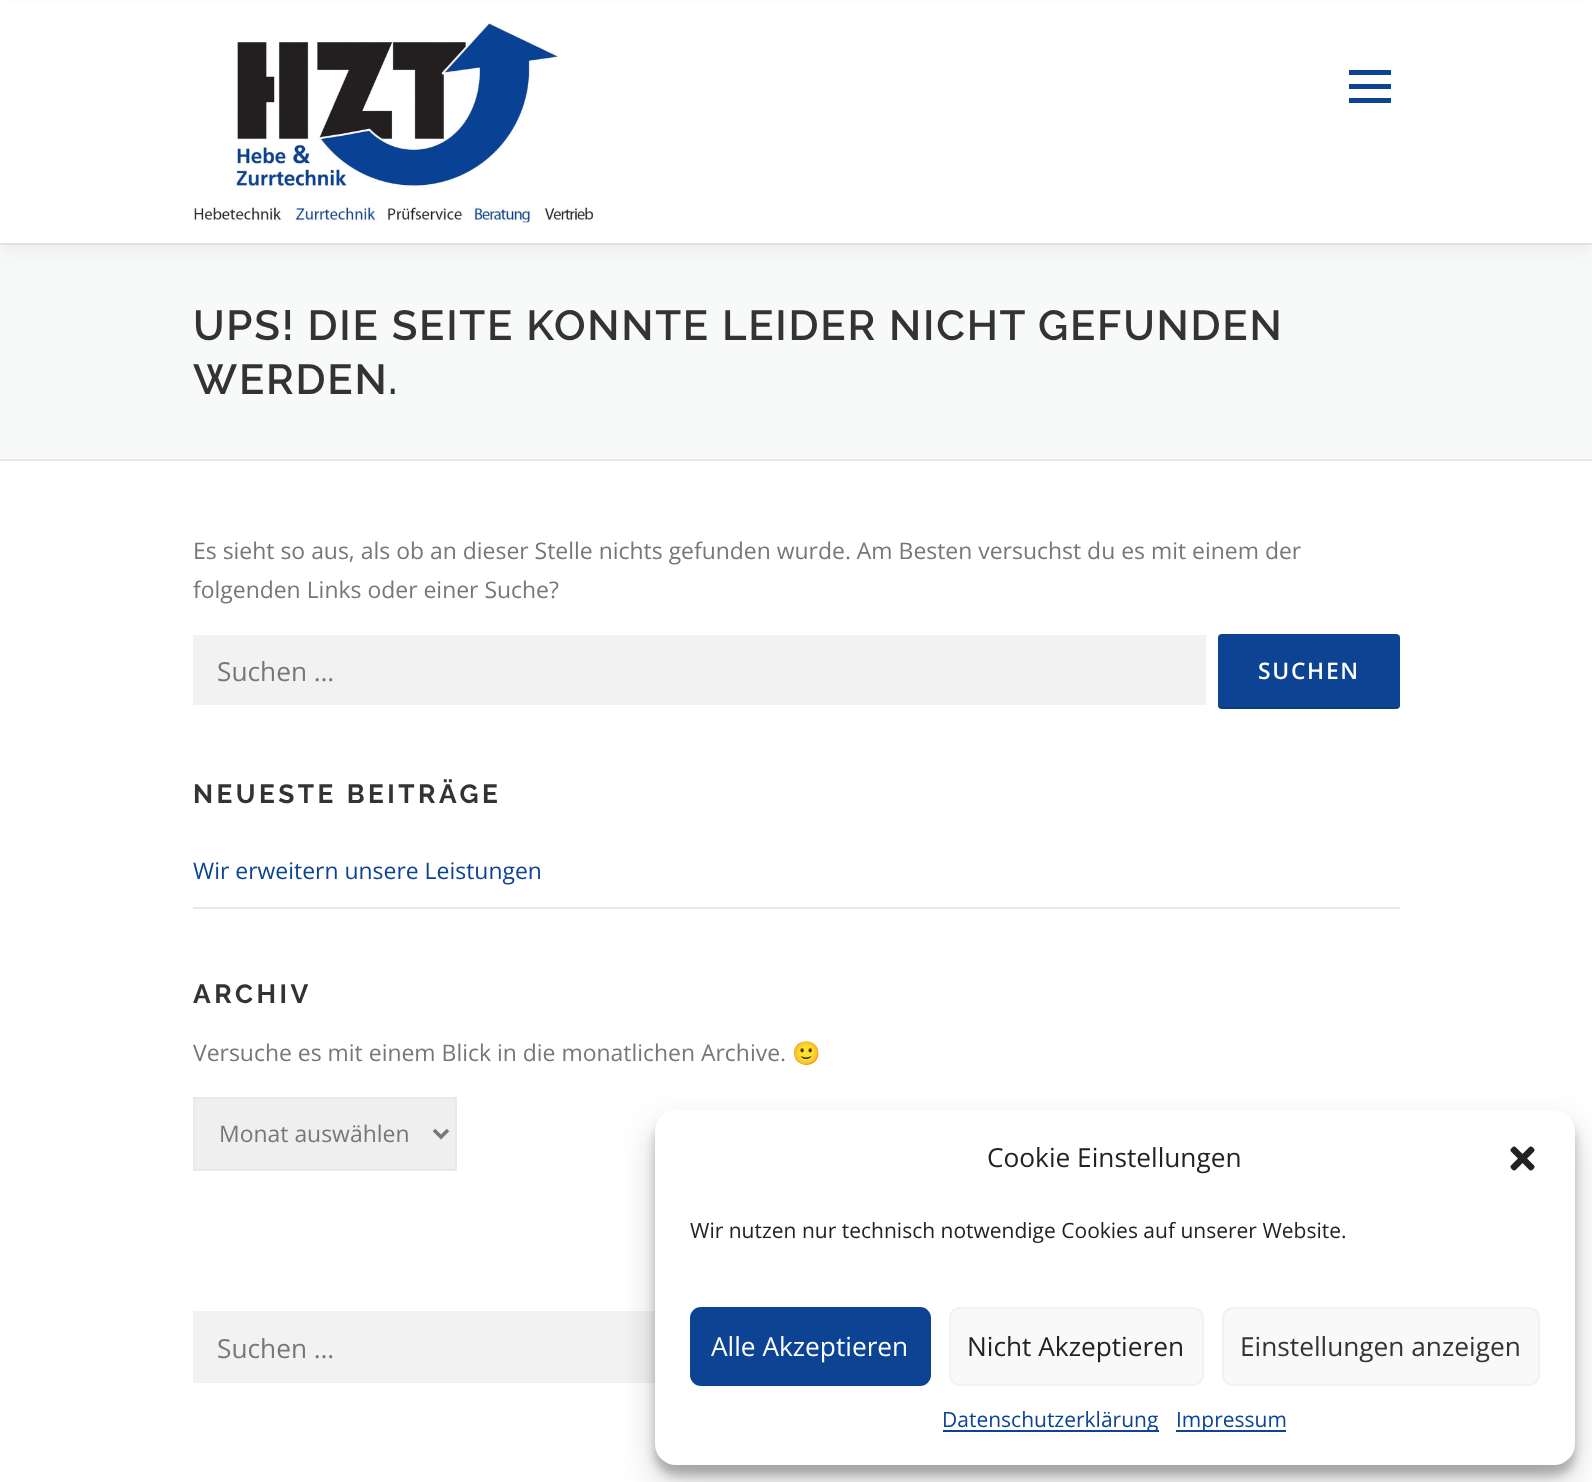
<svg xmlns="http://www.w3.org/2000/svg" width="1592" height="1482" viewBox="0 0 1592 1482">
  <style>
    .t1 { font: 600 42px Raleway; letter-spacing: 1.75px; fill: #333; }
    .t2 { font: 22.95px Open Sans; fill: #777; }
    .t3 { font: 26.25px Open Sans; fill: #777; }
    .t4 { font: 600 22.75px Open Sans; letter-spacing: 1.75px; fill: #fff; }
    .t5 { font: bold 26.25px Raleway; letter-spacing: 3.5px; fill: #333; }
    .t6 { font: 22.95px Open Sans; fill: #0c4393; }
    .t7 { font: 22.95px Noto Color Emoji; fill: #777; }
    .t8 { font: 26.25px Open Sans; fill: #222; }
    .t9 { font: 21px Open Sans; fill: #222; }
    .t10 { font: 26.25px Open Sans; fill: #fff; }
    .t11 { font: 26.25px Open Sans; fill: #333; }
    .t12 { font: 21px Open Sans; fill: #0c4393; }
  </style>
  <rect width="100%" height="100%" fill="#fff"/>
  <rect x="0" y="245" width="1592" height="214" fill="#f8f9f9"/>
  <rect x="0" y="243" width="1592" height="2" fill="#e9e9e9"/>
  <rect x="0" y="9" width="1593" height="243" fill="#3232320f" filter="blur(9px)"/>
  <rect x="0" y="2" width="1592" height="241" fill="#fff"/>
  <image x="193" y="23" width="401" height="200" href="images/1.png"/>
  <rect x="1349" y="84" width="42" height="5" fill="#0c4393"/>
  <rect x="1349" y="70" width="42" height="5" fill="#0c4393"/>
  <rect x="1349" y="98" width="42" height="5" fill="#0c4393"/>
  <rect x="0" y="459" width="1592" height="2" fill="#e9e9e9"/>
  <text x="193" y="340" class="t1">UPS! DIE SEITE KONNTE LEIDER NICHT GEFUNDEN</text>
  <text x="193" y="394" class="t1">WERDEN.</text>
  <text x="193" y="559" class="t2">Es sieht so aus, als ob an dieser Stelle nichts gefunden wurde. Am Besten versuchst du es mit einem der</text>
  <text x="193" y="598" class="t2">folgenden Links oder einer Suche?</text>
  <rect x="193" y="635" width="1013" height="70" fill="#f2f2f2"/>
  <text x="217" y="681" class="t3">Suchen …</text>
  <rect x="1218" y="634" width="182" height="75" rx="4" fill="#0c4393"/>
  <path d="M1218 704V705C1218 707 1220 709 1222 709H1396C1398 709 1400 707 1400 705V704C1400 705 1398 707 1396 707H1222C1220 707 1218 705 1218 704Z" fill="#0000001a"/>
  <text x="1258" y="679" class="t4">SUCHEN</text>
  <text x="193" y="803" class="t5">NEUESTE BEITRÄGE</text>
  <rect x="193" y="907" width="1207" height="2" fill="#e9e9e9"/>
  <text x="193" y="879" class="t6">Wir erweitern unsere Leistungen</text>
  <text x="193" y="1003" class="t5">ARCHIV</text>
  <text x="193" y="1061" class="t2">Versuche es mit einem Blick in die monatlichen Archive.</text>
  <text x="792" y="1061" class="t7">🙂</text>
  <rect x="194" y="1098" width="262" height="72" fill="#efefef" stroke="#e9e9e9" stroke-width="2"/>
  <path d="M434 1130L441 1137L448 1130" fill="none" stroke="#777" stroke-width="3.5"/>
  <text x="219" y="1142" class="t2">Monat auswählen</text>
  <rect x="193" y="1311" width="462" height="72" fill="#f2f2f2"/>
  <text x="217" y="1358" class="t3">Suchen …</text>
  <rect x="655" y="1120" width="920" height="355" rx="21" fill="#0000003b" filter="blur(5px)"/>
  <rect x="655" y="1127" width="920" height="355" rx="21" fill="#00000030" filter="blur(17.5px)"/>
  <rect x="655" y="1110" width="920" height="355" rx="21" fill="#fff"/>
  <text x="987" y="1167" class="t8">Cookie Einstellungen</text>
  <image x="1510" y="1146" width="25" height="25" href="images/2.png"/>
  <text x="690" y="1238" class="t9">Wir nutzen nur technisch notwendige Cookies auf unserer Website.</text>
  <rect x="691" y="1308" width="239" height="77" rx="10" fill="#0c4393" stroke="#0c4393" stroke-width="2"/>
  <text x="711" y="1356" class="t10">Alle Akzeptieren</text>
  <rect x="950" y="1308" width="253" height="77" rx="10" fill="#f9f9f9" stroke="#f2f2f2" stroke-width="2"/>
  <text x="967" y="1356" class="t8">Nicht Akzeptieren</text>
  <rect x="1223" y="1308" width="316" height="77" rx="10" fill="#f9f9f9" stroke="#f2f2f2" stroke-width="2"/>
  <text x="1240" y="1356" class="t11">Einstellungen anzeigen</text>
  <rect x="943" y="1430" width="216" height="2" fill="#0c4393"/>
  <text x="942" y="1427" class="t12">Datenschutzerklärung</text>
  <rect x="1176" y="1430" width="110" height="2" fill="#0c4393"/>
  <text x="1176" y="1427" class="t12">Impressum</text>
</svg>
